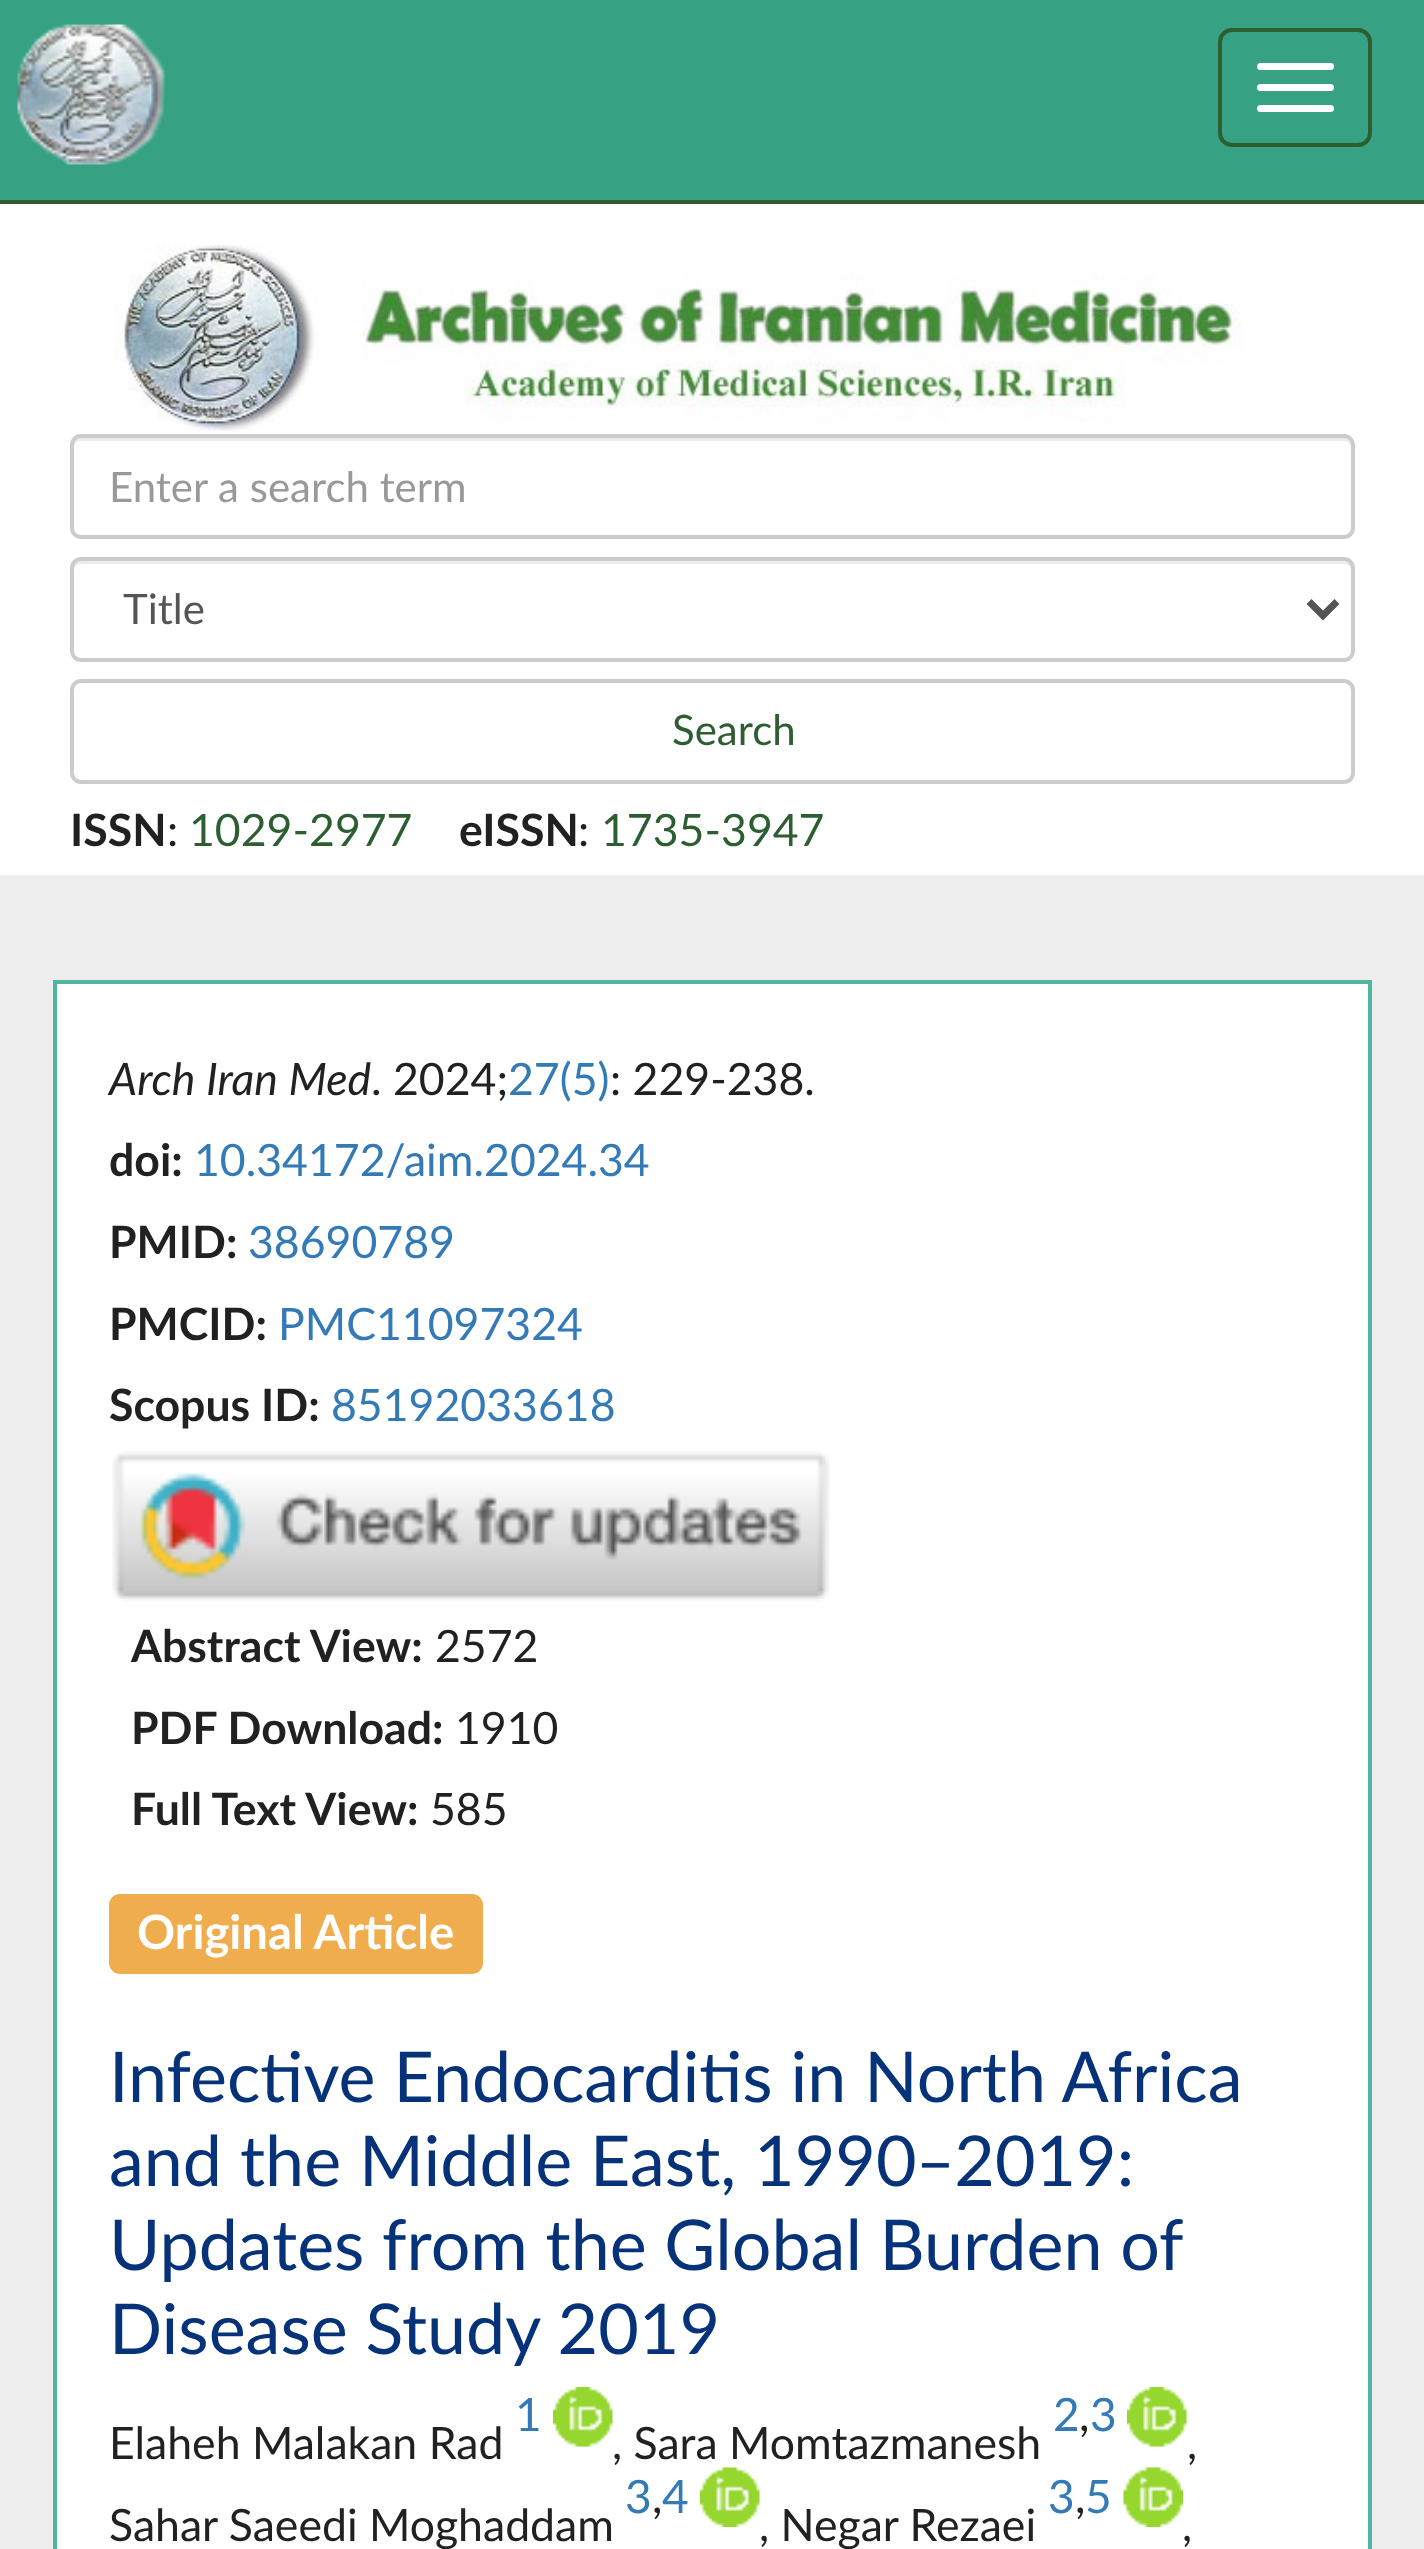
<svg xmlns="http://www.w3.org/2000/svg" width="1424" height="2549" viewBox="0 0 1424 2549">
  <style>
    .t1 { font: 42px Lato; fill: #999; }
    .t2 { font: 42px Lato; fill: #555; }
    .t3 { font: 42px Lato; fill: #2d5e31; }
    .t4 { font: bold 44.6px Lato; fill: #212121; }
    .t5 { font: 44.6px Lato; fill: #212121; }
    .t6 { font: 44.6px Lato; fill: #2d5e31; }
    .t7 { font: italic 44.6px Lato; fill: #212121; }
    .t8 { font: 44.6px Lato; fill: #337ab7; }
    .t9 { font: bold 47.25px Lato; fill: #fff; }
    .t10 { font: 70px Lato; fill: #053278; }
    .t11 { font: 46px Lato; fill: #337ab7; }
    .t12 { font: 46px Lato; fill: #212121; }
  </style>
  <rect width="100%" height="100%" fill="#eee"/>
  <rect x="0" y="0" width="1424" height="200" fill="#37a184"/>
  <rect x="0" y="200" width="1424" height="4" fill="#2d5e31"/>
  <image x="17" y="24" width="148" height="141" href="images/1.png"/>
  <rect x="1220" y="30" width="150" height="115" rx="12" fill="none" stroke="#2d5e31" stroke-width="4"/>
  <rect x="1257" y="63" width="77" height="7" rx="3.5" fill="#fff"/>
  <rect x="1257" y="84" width="77" height="7" rx="3.5" fill="#fff"/>
  <rect x="1257" y="105" width="77" height="7" rx="3.5" fill="#fff"/>
  <rect x="0" y="204" width="1424" height="671" fill="#fff"/>
  <image x="114" y="245" width="1128" height="186" href="images/2.png"/>
  <path d="M80 441H1344C1348 441 1351 444 1351 448V445C1351 441 1348 438 1344 438H81C77 438 74 441 74 445V448C74 444 77 441 80 441Z" fill="#ececec"/>
  <rect x="72" y="436" width="1281" height="101" rx="9" fill="none" stroke="#ccc" stroke-width="4"/>
  <text x="109" y="502" class="t1">Enter a search term</text>
  <path d="M80 564H1344C1348 564 1351 567 1351 570V567C1351 563 1348 560 1344 560H81C77 560 74 563 74 567V570C74 567 77 564 80 564Z" fill="#ececec"/>
  <rect x="72" y="559" width="1281" height="101" rx="9" fill="none" stroke="#ccc" stroke-width="4"/>
  <path d="M1309 601.5L1323 615.5L1337 601.5" fill="none" stroke="#555" stroke-width="7"/>
  <text x="123" y="624" class="t2">Title</text>
  <rect x="72" y="681" width="1281" height="101" rx="9" fill="none" stroke="#ccc" stroke-width="4"/>
  <text x="672" y="745" class="t3">Search</text>
  <text x="70" y="846" class="t4">ISSN</text>
  <text x="167" y="846" class="t5">:</text>
  <text x="189" y="846" class="t6">1029-2977</text>
  <text x="459" y="846" class="t4">eISSN</text>
  <text x="578" y="846" class="t5">:</text>
  <text x="601" y="846" class="t6">1735-3947</text>
  <rect x="55" y="982" width="1315" height="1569" fill="#fff" stroke="#4fb59e" stroke-width="4"/>
  <text x="109" y="1095" class="t7">Arch Iran Med</text>
  <text x="371" y="1095" class="t5">. 2024;</text>
  <text x="508" y="1095" class="t8">27(5)</text>
  <text x="610" y="1095" class="t5">: 229-238.</text>
  <text x="109" y="1176" class="t4">doi:</text>
  <text x="194" y="1176" class="t8">10.34172/aim.2024.34</text>
  <text x="109" y="1258" class="t4">PMID:</text>
  <text x="248" y="1258" class="t8">38690789</text>
  <text x="109" y="1340" class="t4">PMCID:</text>
  <text x="278" y="1340" class="t8">PMC11097324</text>
  <text x="109" y="1421" class="t4">Scopus ID:</text>
  <text x="331" y="1421" class="t8">85192033618</text>
  <image x="112" y="1451" width="718" height="151" href="images/3.png"/>
  <text x="131" y="1662" class="t4">Abstract View:</text>
  <text x="435" y="1662" class="t5">2572</text>
  <text x="131" y="1744" class="t4">PDF Download:</text>
  <text x="455" y="1744" class="t5">1910</text>
  <text x="131" y="1825" class="t4">Full Text View:</text>
  <text x="430" y="1825" class="t5">585</text>
  <rect x="109" y="1894" width="374" height="80" rx="11" fill="#f0ad4e"/>
  <text x="137" y="1949" class="t9">Original Article</text>
  <text x="109" y="2102" class="t10">Infective Endocarditis in North Africa</text>
  <text x="109" y="2186" class="t10">and the Middle East, 1990‒2019:</text>
  <text x="109" y="2270" word-spacing="-0.25" class="t10">Updates from the Global Burden of</text>
  <text x="109" y="2354" class="t10">Disease Study 2019</text>
  <text x="109" y="2459" class="t5">Elaheh Malakan Rad</text>
  <text x="515" y="2431" class="t11">1</text>
  <image x="553" y="2387" width="60" height="60" href="images/4.png"/>
  <text x="612" y="2459" class="t5">, Sara Momtazmanesh</text>
  <text x="1053" y="2431" class="t11">2</text>
  <text x="1079" y="2431" class="t12">,</text>
  <text x="1090" y="2431" class="t11">3</text>
  <image x="1127" y="2387" width="60" height="60" href="images/5.png"/>
  <text x="1187" y="2459" class="t5">,</text>
  <text x="109" y="2541" class="t5">Sahar Saeedi Moghaddam</text>
  <text x="625" y="2513" class="t11">3</text>
  <text x="652" y="2513" class="t12">,</text>
  <text x="662" y="2513" class="t11">4</text>
  <image x="700" y="2467" width="60" height="60" href="images/6.png"/>
  <text x="759" y="2541" class="t5">, Negar Rezaei</text>
  <text x="1048" y="2513" class="t11">3</text>
  <text x="1075" y="2513" class="t12">,</text>
  <text x="1085" y="2513" class="t11">5</text>
  <image x="1123" y="2467" width="60" height="60" href="images/7.png"/>
  <text x="1182" y="2541" class="t5">,</text>
</svg>
